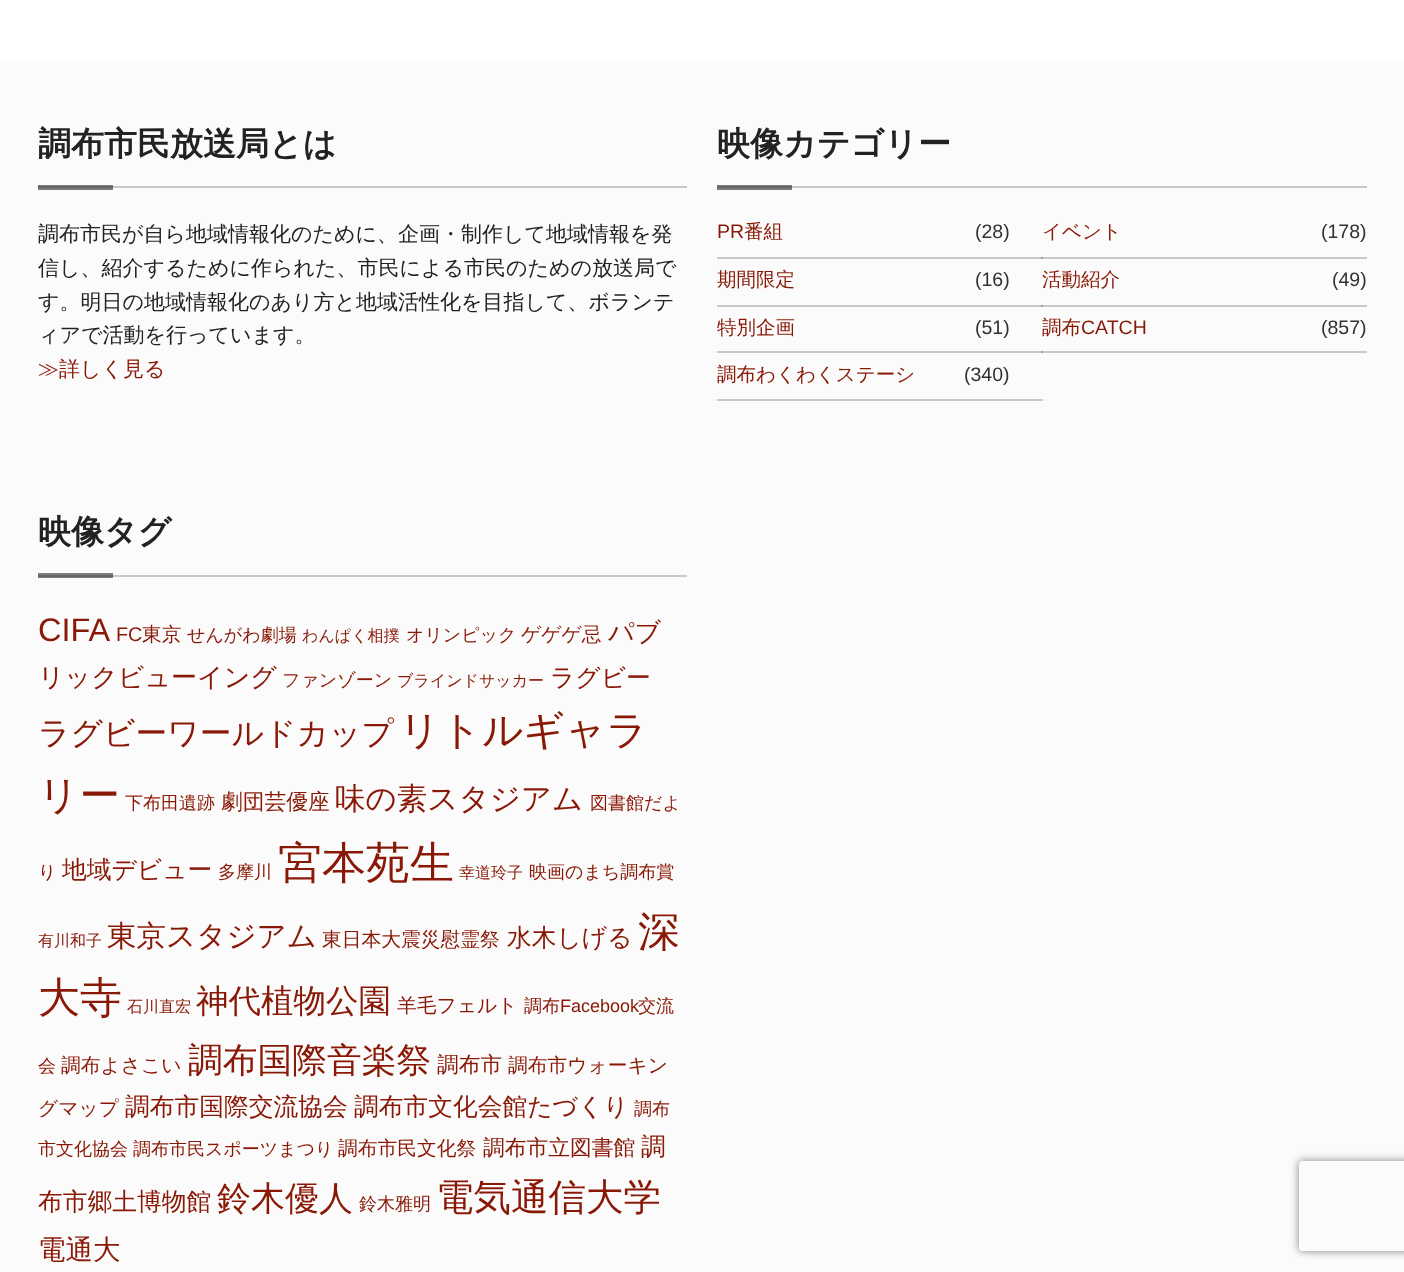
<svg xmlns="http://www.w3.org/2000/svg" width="1404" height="1272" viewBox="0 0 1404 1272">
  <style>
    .t1 { font: bold 33px WenQuanYi Zen Hei; fill: #222; }
    .t2 { font: 500 21px WenQuanYi Zen Hei; fill: #222; }
    .t3 { font: 500 21px WenQuanYi Zen Hei; fill: #8a1806; }
    .t4 { font: 19.5px Liberation Sans; fill: #8a1806; }
    .t5 { font: 500 19.5px WenQuanYi Zen Hei; fill: #8a1806; }
    .t6 { font: 19.5px Liberation Sans; fill: #323232; }
    .t7 { font: 32.5px Liberation Sans; fill: #8a1806; }
    .t8 { font: 19.75px Liberation Sans; fill: #8a1806; }
    .t9 { font: 500 19.75px WenQuanYi Zen Hei; fill: #8a1806; }
    .t10 { font: 500 18px WenQuanYi Zen Hei; fill: #8a1806; }
    .t11 { font: 500 16px WenQuanYi Zen Hei; fill: #8a1806; }
    .t12 { font: 500 26px WenQuanYi Zen Hei; fill: #8a1806; }
    .t13 { font: 500 24.75px WenQuanYi Zen Hei; fill: #8a1806; }
    .t14 { font: 500 31.75px WenQuanYi Zen Hei; fill: #8a1806; }
    .t15 { font: 500 40.5px WenQuanYi Zen Hei; fill: #8a1806; }
    .t16 { font: 500 21.75px WenQuanYi Zen Hei; fill: #8a1806; }
    .t17 { font: 500 30.5px WenQuanYi Zen Hei; fill: #8a1806; }
    .t18 { font: 500 44px WenQuanYi Zen Hei; fill: #8a1806; }
    .t19 { font: 500 29.5px WenQuanYi Zen Hei; fill: #8a1806; }
    .t20 { font: 500 42px WenQuanYi Zen Hei; fill: #8a1806; }
    .t21 { font: 500 32.5px WenQuanYi Zen Hei; fill: #8a1806; }
    .t22 { font: 18px Liberation Sans; fill: #8a1806; }
    .t23 { font: 500 34.75px WenQuanYi Zen Hei; fill: #8a1806; }
    .t24 { font: 500 34px WenQuanYi Zen Hei; fill: #8a1806; }
    .t25 { font: 500 37.5px WenQuanYi Zen Hei; fill: #8a1806; }
    .t26 { font: 500 27.5px WenQuanYi Zen Hei; fill: #8a1806; }
  </style>
  <defs>
    <clipPath id="clip1"><path d="M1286 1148H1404V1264H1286ZM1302 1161H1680C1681.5 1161 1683 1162.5 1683 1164V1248C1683 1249.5 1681.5 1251 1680 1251H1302C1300.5 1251 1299 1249.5 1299 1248V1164C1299 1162.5 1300.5 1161 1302 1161Z" clip-rule="evenodd"/></clipPath>
  </defs>
  <rect width="100%" height="100%" fill="#fff"/>
  <rect x="0" y="60" width="1404" height="1212" fill="#fbfbfb"/>
  <rect x="38" y="573" width="75" height="5" fill="#7e7e7e"/>
  <rect x="717" y="185" width="75" height="5" fill="#7e7e7e"/>
  <rect x="38" y="185" width="75" height="5" fill="#7e7e7e"/>
  <rect x="717" y="351" width="650" height="2" fill="#c9c9c9"/>
  <rect x="717" y="305" width="650" height="2" fill="#c9c9c9"/>
  <rect x="717" y="257" width="650" height="2" fill="#c9c9c9"/>
  <rect x="113" y="186" width="574" height="2" fill="#c9c9c9"/>
  <rect x="38" y="186" width="75" height="2" fill="#656565"/>
  <text x="38" y="155" class="t1">調布市民放送局とは</text>
  <text x="38" y="241" class="t2">調布市民が自ら地域情報化のために、企画・制作して地域情報を発</text>
  <text x="38" y="275" class="t2">信し、紹介するために作られた、市民による市民のための放送局で</text>
  <text x="38" y="309" class="t2">す。明日の地域情報化のあり方と地域活性化を目指して、ボランテ</text>
  <text x="38" y="342" class="t2">ィアで活動を行っています。</text>
  <text x="38" y="376" class="t3">≫詳しく見る</text>
  <rect x="792" y="186" width="575" height="2" fill="#c9c9c9"/>
  <rect x="717" y="186" width="75" height="2" fill="#656565"/>
  <text x="717" y="155" class="t1">映像カテゴリー</text>
  <rect x="1041" y="257" width="2" height="2" fill="#a1a1a1"/>
  <text x="717" y="238" class="t4">PR</text>
  <text x="744" y="238" class="t5">番組</text>
  <text x="975" y="238" class="t6">(28)</text>
  <text x="1042" y="238" class="t5">イベント</text>
  <text x="1321" y="238" class="t6">(178)</text>
  <rect x="1041" y="305" width="2" height="2" fill="#a1a1a1"/>
  <text x="717" y="286" class="t5">期間限定</text>
  <text x="975" y="286" class="t6">(16)</text>
  <text x="1042" y="286" class="t5">活動紹介</text>
  <text x="1332" y="286" class="t6">(49)</text>
  <rect x="1041" y="351" width="2" height="2" fill="#a1a1a1"/>
  <text x="717" y="334" class="t5">特別企画</text>
  <text x="975" y="334" class="t6">(51)</text>
  <text x="1042" y="334" class="t5">調布</text>
  <text x="1081" y="334" class="t4">CATCH</text>
  <text x="1321" y="334" class="t6">(857)</text>
  <rect x="717" y="399" width="326" height="2" fill="#c9c9c9"/>
  <text x="717" y="381" class="t5">調布わくわくステーシ</text>
  <text x="964" y="381" class="t6">(340)</text>
  <rect x="113" y="575" width="574" height="2" fill="#c9c9c9"/>
  <rect x="38" y="575" width="75" height="2" fill="#656565"/>
  <text x="38" y="543" class="t1">映像タグ</text>
  <text x="38" y="641" class="t7">CIFA</text>
  <text x="116" y="641" class="t8">FC</text>
  <text x="142" y="641" class="t9">東京</text>
  <text x="187" y="641" class="t10">せんがわ劇場</text>
  <text x="302" y="641" class="t11">わんぱく相撲</text>
  <text x="406" y="641" class="t10">オリンピック</text>
  <text x="521" y="641" class="t9">ゲゲゲ忌</text>
  <text x="608" y="641" class="t12">パブ</text>
  <text x="38" y="686" class="t12">リックビューイング</text>
  <text x="282" y="686" class="t10">ファンゾーン</text>
  <text x="397" y="686" class="t11">ブラインドサッカー</text>
  <text x="550" y="686" class="t13">ラグビー</text>
  <text x="38" y="744" class="t14">ラグビーワールドカップ</text>
  <text x="399" y="744" class="t15">リトルギャラ</text>
  <text x="38" y="809" class="t15">リー</text>
  <text x="125" y="809" class="t10">下布田遺跡</text>
  <text x="221" y="809" class="t16">劇団芸優座</text>
  <text x="335" y="809" class="t17">味の素スタジアム</text>
  <text x="590" y="809" class="t10">図書館だよ</text>
  <text x="38" y="878" class="t10">り</text>
  <text x="62" y="878" class="t13">地域デビュー</text>
  <text x="218" y="878" class="t10">多摩川</text>
  <text x="278" y="878" class="t18">宮本苑生</text>
  <text x="459" y="878" class="t11">幸道玲子</text>
  <text x="529" y="878" class="t10">映画のまち調布賞</text>
  <text x="38" y="946" class="t11">有川和子</text>
  <text x="107" y="946" class="t19">東京スタジアム</text>
  <text x="322" y="946" class="t9">東日本大震災慰霊祭</text>
  <text x="507" y="946" class="t13">水木しげる</text>
  <text x="638" y="946" class="t20">深</text>
  <text x="38" y="1012" class="t20">大寺</text>
  <text x="127" y="1012" class="t11">石川直宏</text>
  <text x="196" y="1012" class="t21">神代植物公園</text>
  <text x="397" y="1012" class="t9">羊毛フェルト</text>
  <text x="524" y="1012" class="t10">調布</text>
  <text x="560" y="1012" class="t22">Facebook</text>
  <text x="638" y="1012" class="t10">交流</text>
  <text x="38" y="1072" class="t10">会</text>
  <text x="61" y="1072" class="t9">調布よさこい</text>
  <text x="188" y="1072" class="t23">調布国際音楽祭</text>
  <text x="437" y="1072" class="t16">調布市</text>
  <text x="508" y="1072" class="t9">調布市ウォーキン</text>
  <text x="38" y="1115" class="t9">グマップ</text>
  <text x="125" y="1115" class="t13">調布市国際交流協会</text>
  <text x="354" y="1115" class="t13">調布市文化会館たづくり</text>
  <text x="634" y="1115" class="t10">調布</text>
  <text x="38" y="1155" class="t10">市文化協会</text>
  <text x="133" y="1155" class="t10">調布市民スポーツまつり</text>
  <text x="338" y="1155" class="t9">調布市民文化祭</text>
  <text x="483" y="1155" class="t16">調布市立図書館</text>
  <text x="641" y="1155" class="t13">調</text>
  <text x="38" y="1210" class="t13">布市郷土博物館</text>
  <text x="217" y="1210" class="t24">鈴木優人</text>
  <text x="359" y="1210" class="t10">鈴木雅明</text>
  <text x="436" y="1210" class="t25">電気通信大学</text>
  <text x="38" y="1259" class="t26">電通大</text>
  <g clip-path="url(#clip1)">
    <rect x="1299" y="1161" width="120" height="90" rx="3" fill="#808080" filter="blur(4px)"/>
  </g>
</svg>
